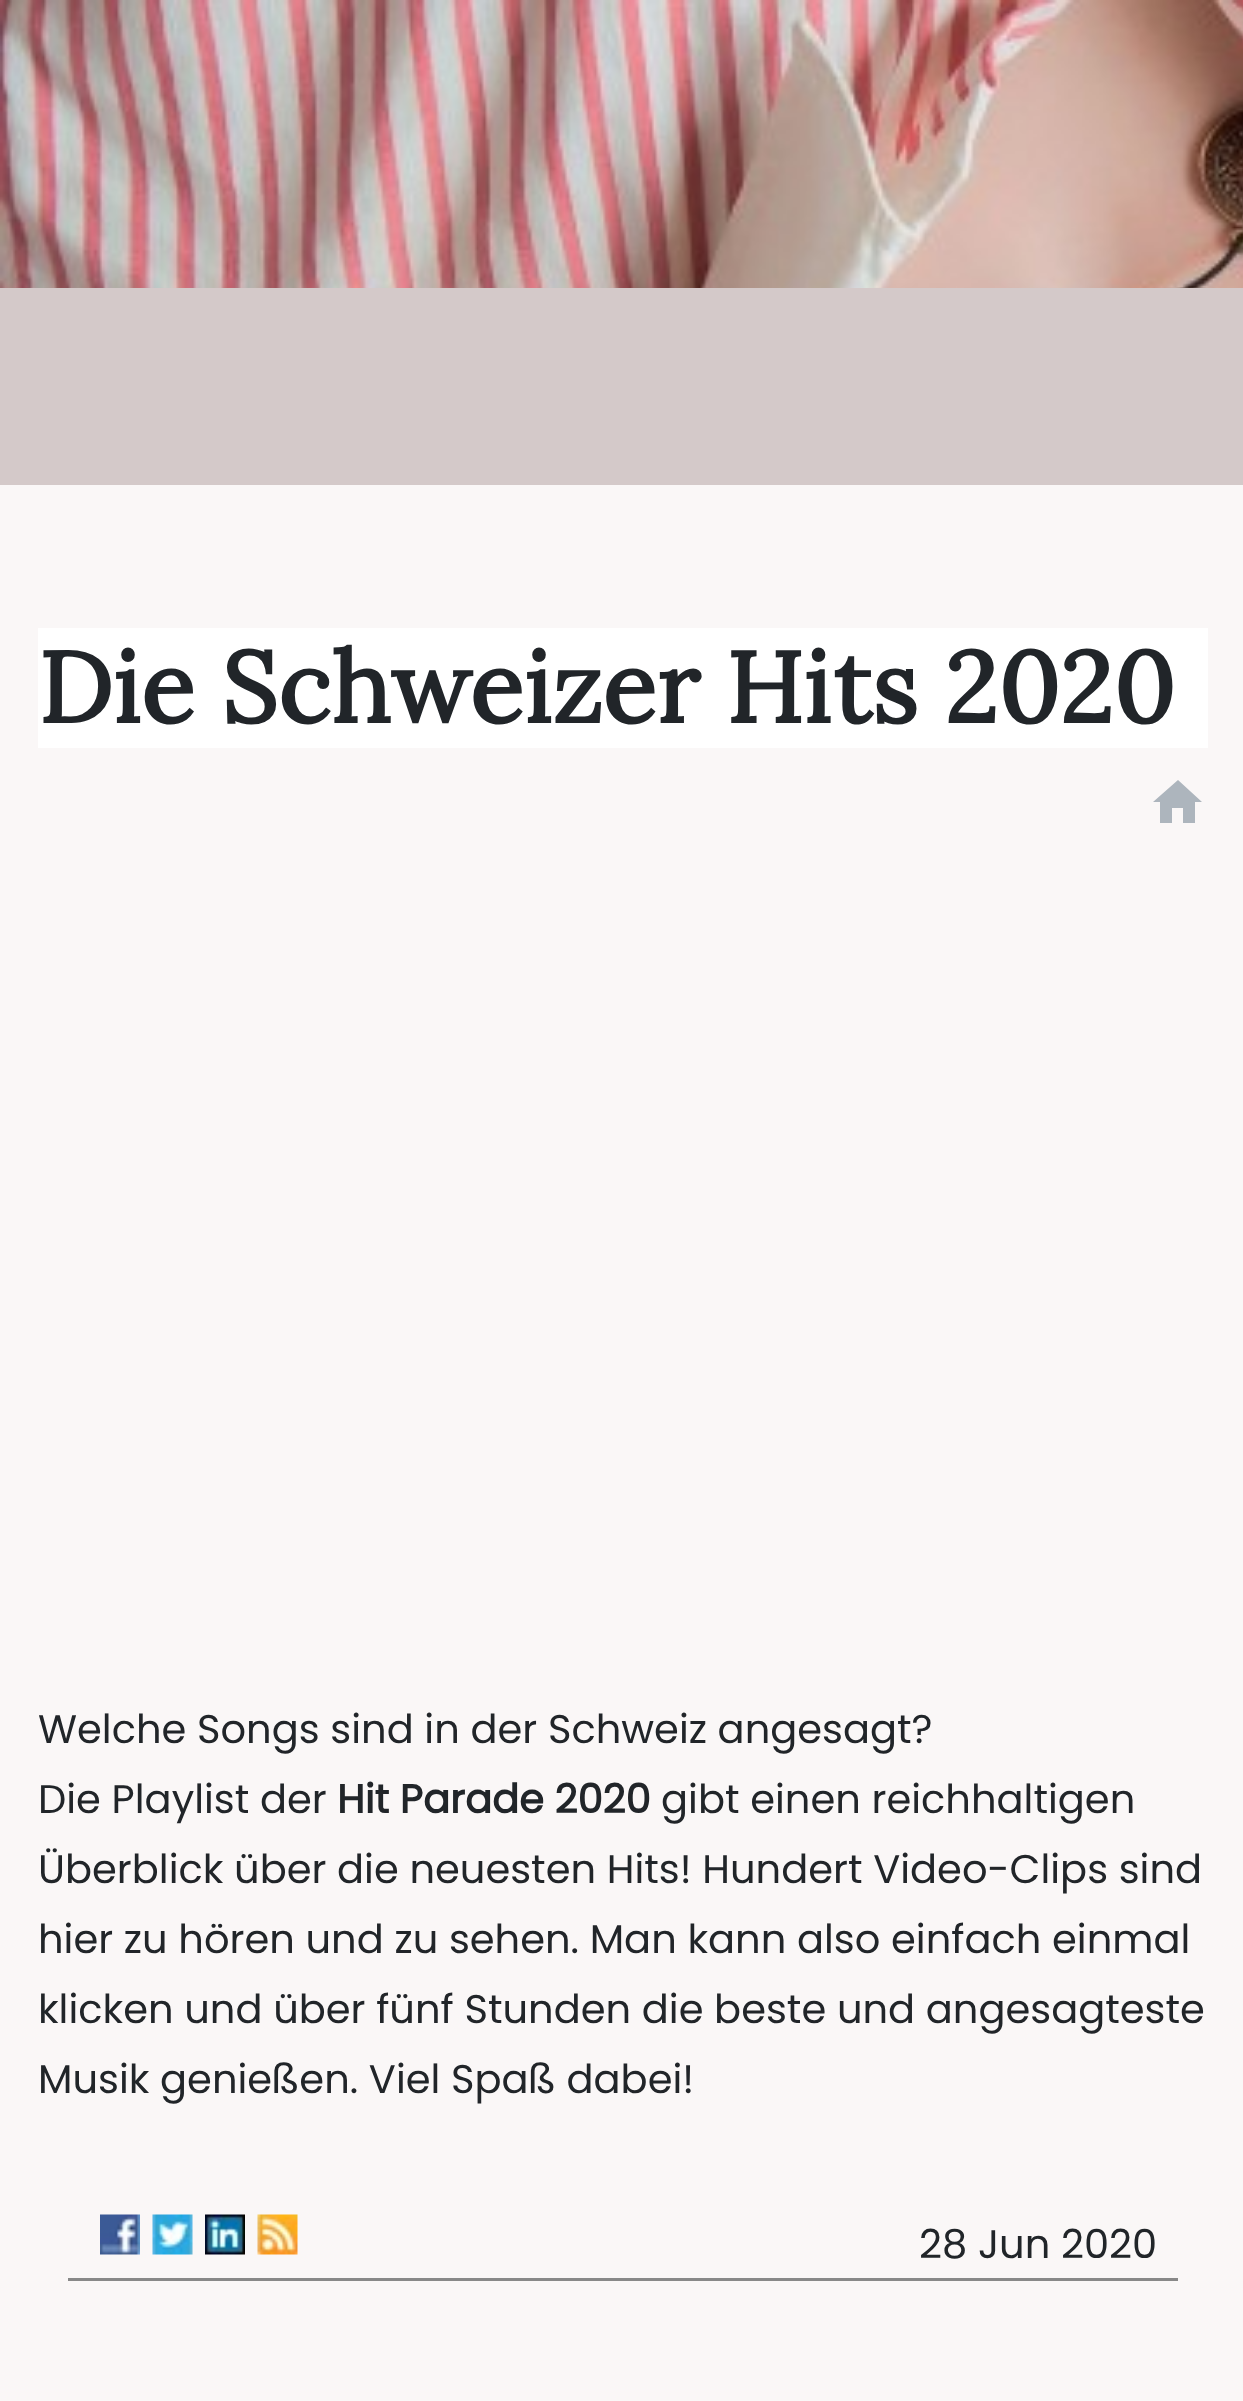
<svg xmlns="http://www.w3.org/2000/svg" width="1243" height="2401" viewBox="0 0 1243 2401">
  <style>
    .t1 { font: bold 100px Lora; fill: #212529; }
    .t2 { font: 40px Poppins; fill: #212529; }
    .t3 { font: bold 40px Poppins; fill: #212529; }
  </style>
  <rect width="100%" height="100%" fill="#fff"/>
  <image x="0" y="0" width="1243" height="288" href="images/1.png"/>
  <rect x="0" y="288" width="1243" height="197" fill="#d4c9c9"/>
  <rect x="0" y="485" width="1243" height="1916" fill="#faf7f7"/>
  <rect x="38" y="628" width="1170" height="120" fill="#fff"/>
  <text x="38" y="723" class="t1">Die Schweizer Hits 2020</text>
  <path d="M1172 823H1160V802H1153L1178 780L1202 802H1195V823H1183V808H1172Z" fill="#adb5bd"/>
  <text x="38" y="1743" class="t2">Welche Songs sind in der Schweiz angesagt?</text>
  <text x="38" y="1813" class="t2">Die Playlist der</text>
  <text x="337" y="1813" class="t3">Hit Parade 2020</text>
  <text x="661" y="1813" class="t2">gibt einen reichhaltigen</text>
  <text x="38" y="1883" class="t2">Überblick über die neuesten Hits! Hundert Video-Clips sind</text>
  <text x="38" y="1953" class="t2">hier zu hören und zu sehen. Man kann also einfach einmal</text>
  <text x="38" y="2023" class="t2">klicken und über fünf Stunden die beste und angesagteste</text>
  <text x="38" y="2093" class="t2">Musik genießen. Viel Spaß dabei!</text>
  <image x="100" y="2214" width="40" height="41" href="images/2.png"/>
  <image x="152" y="2214" width="41" height="41" href="images/3.png"/>
  <image x="205" y="2214" width="40" height="41" href="images/4.png"/>
  <image x="257" y="2214" width="41" height="41" href="images/5.png"/>
  <text x="919" y="2258" class="t2">28 Jun 2020</text>
  <rect x="68" y="2278" width="1110" height="3" fill="#888"/>
</svg>
